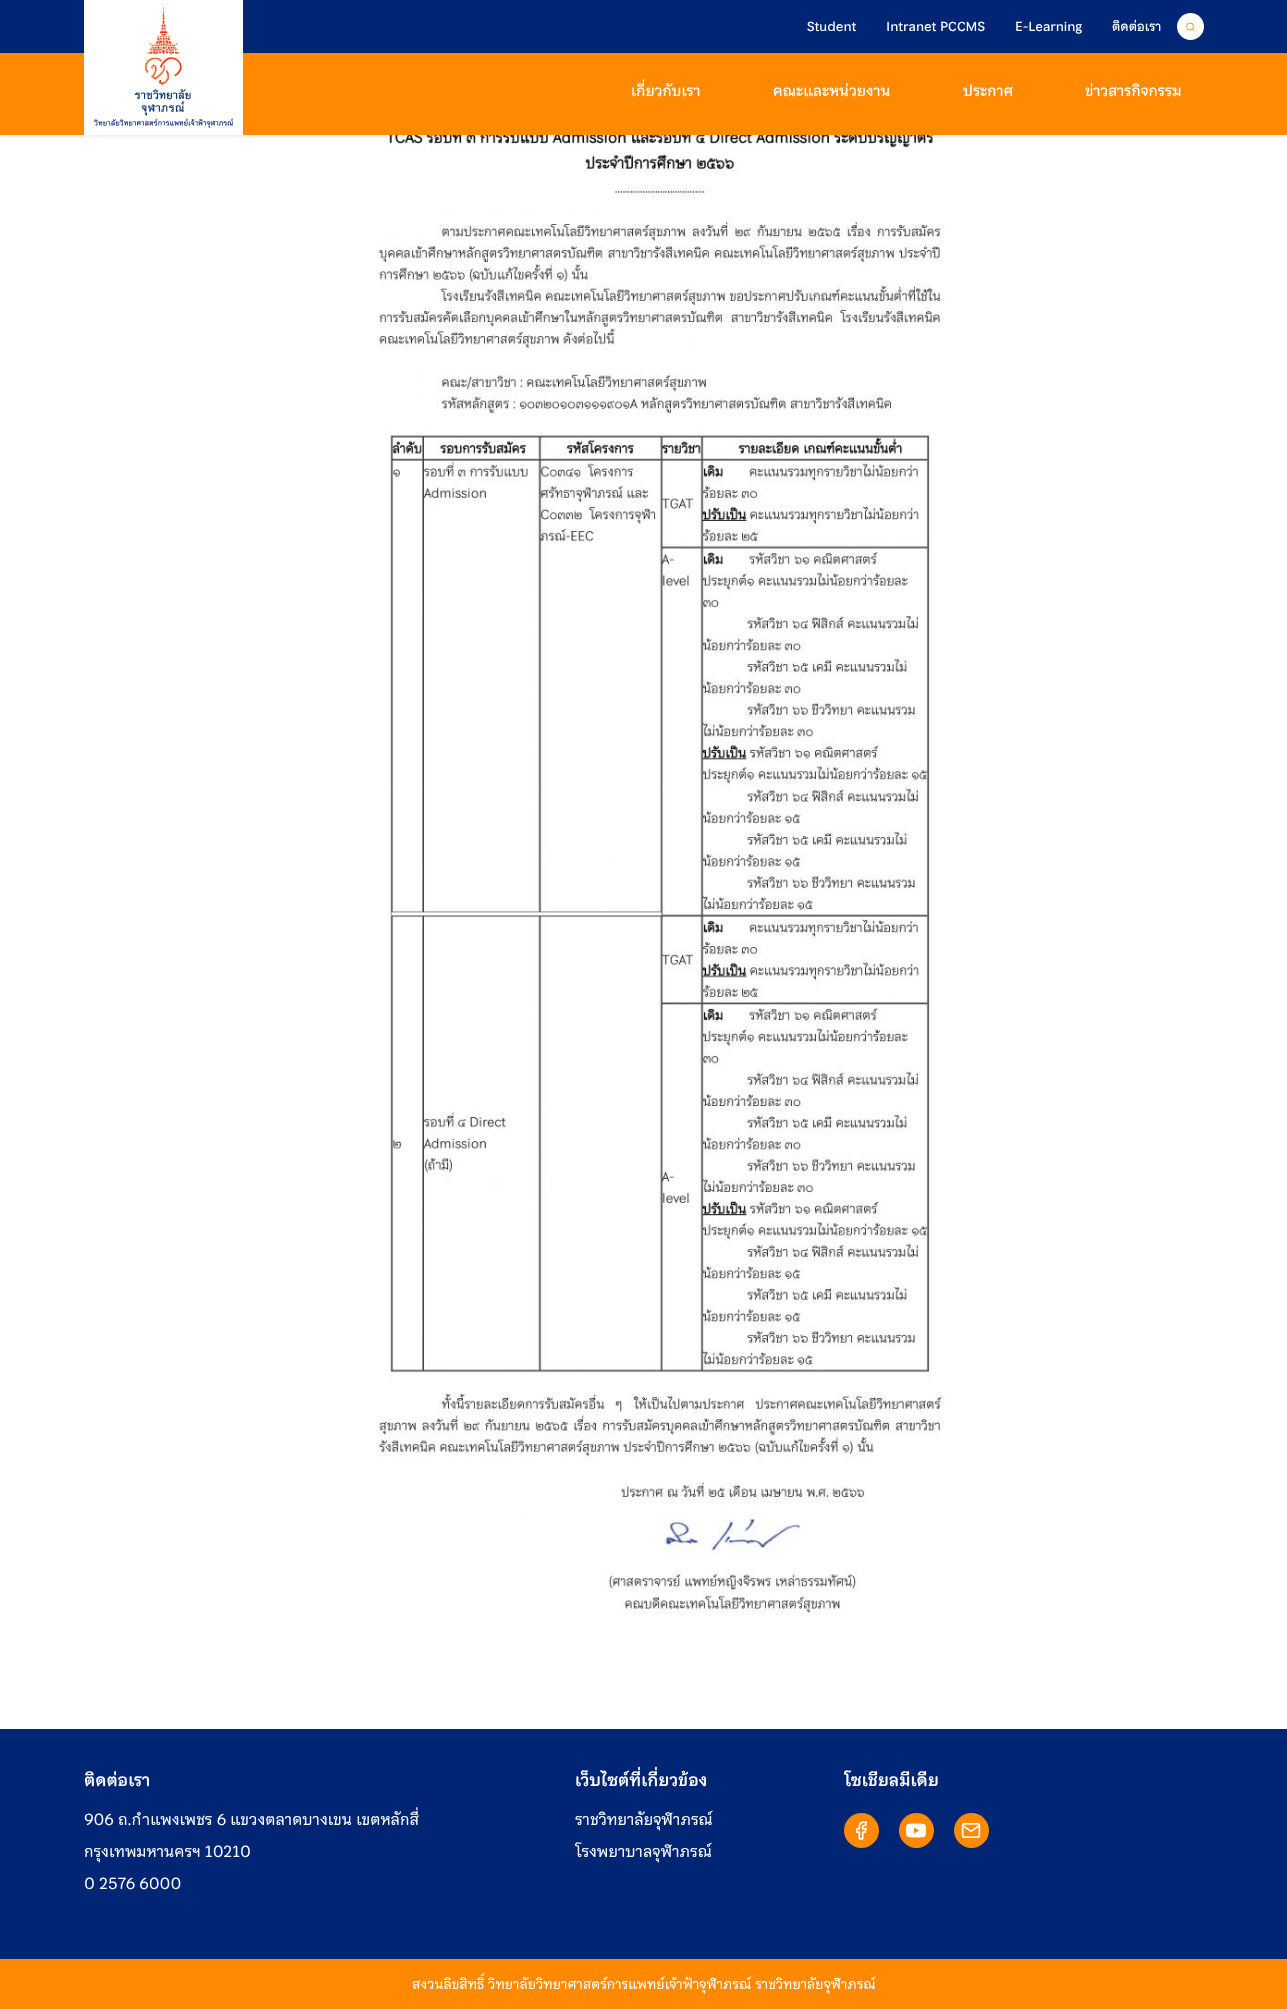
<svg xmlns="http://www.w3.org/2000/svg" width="1287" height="2009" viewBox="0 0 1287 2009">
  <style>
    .t1 { font: 500 13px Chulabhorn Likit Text; fill: #fff; }
    .t2 { font: 500 15px Chulabhorn Likit Text; fill: #fff; }
    .t3 { font: bold 17px Chulabhorn Likit Text; fill: #fff; }
    .t4 { font: 16px Chulabhorn Likit Text; fill: #fff; }
    .t5 { font: 14px Chulabhorn Likit Text; fill: #fff; }
  </style>
  <rect width="100%" height="100%" fill="#fff"/>
  <image x="378" y="135" width="568" height="1479" href="images/2.png"/>
  <rect x="0" y="1" width="1287" height="135" fill="#0000001a" filter="blur(2px)"/>
  <rect x="0" y="0" width="1287" height="53" fill="#002575"/>
  <rect x="0" y="53" width="1287" height="82" fill="#ff8900"/>
  <rect x="84" y="0" width="159" height="135" fill="#fff"/>
  <image x="94" y="7" width="139" height="121" href="images/1.png"/>
  <text x="807" y="31" class="t1">Student</text>
  <text x="886" y="31" class="t1">Intranet PCCMS</text>
  <text x="1015" y="31" class="t1">E-Learning</text>
  <text x="1112" y="31" class="t1">ติดต่อเรา</text>
  <circle cx="1190.5" cy="26.5" r="13.5" fill="#fff"/>
  <circle cx="1190" cy="26.5" r="3.5" fill="none" stroke="#ff8900" stroke-width="0.9"/>
  <path d="M1194.5 31L1192.5 29" fill="none" stroke="#ff8900" stroke-width="0.9" stroke-linecap="round" stroke-linejoin="round"/>
  <text x="631" y="96" class="t2">เกี่ยวกับเรา</text>
  <text x="773" y="96" class="t2">คณะและหน่วยงาน</text>
  <text x="963" y="96" class="t2">ประกาศ</text>
  <text x="1085" y="96" class="t2">ข่าวสารกิจกรรม</text>
  <rect x="0" y="1729" width="1287" height="230" fill="#002575"/>
  <text x="84" y="1786" class="t3">ติดต่อเรา</text>
  <text x="84" y="1825" class="t4">906 ถ.กำแพงเพชร 6 แขวงตลาดบางเขน เขตหลักสี่</text>
  <text x="84" y="1857" class="t4">กรุงเทพมหานครฯ 10210</text>
  <text x="84" y="1889" class="t4">0 2576 6000</text>
  <text x="575" y="1786" class="t3">เว็บไซต์ที่เกี่ยวข้อง</text>
  <text x="575" y="1825" class="t4">ราชวิทยาลัยจุฬาภรณ์</text>
  <text x="575" y="1857" class="t4">โรงพยาบาลจุฬาภรณ์</text>
  <text x="844" y="1786" class="t3">โซเชียลมีเดีย</text>
  <circle cx="861.5" cy="1830.5" r="17.5" fill="#ff8900"/>
  <image x="856" y="1821" width="11" height="19" href="images/3.png"/>
  <circle cx="916.5" cy="1830.5" r="17.5" fill="#ff8900"/>
  <image x="906" y="1823" width="20" height="15" href="images/4.png"/>
  <circle cx="971.5" cy="1830.5" r="17.5" fill="#ff8900"/>
  <image x="961" y="1823" width="20" height="15" href="images/5.png"/>
  <rect x="0" y="1959" width="1287" height="50" fill="#ff8900"/>
  <text x="412" y="1989" class="t5">สงวนลิขสิทธิ์ วิทยาลัยวิทยาศาสตร์การแพทย์เจ้าฟ้าจุฬาภรณ์ ราชวิทยาลัยจุฬาภรณ์</text>
</svg>
